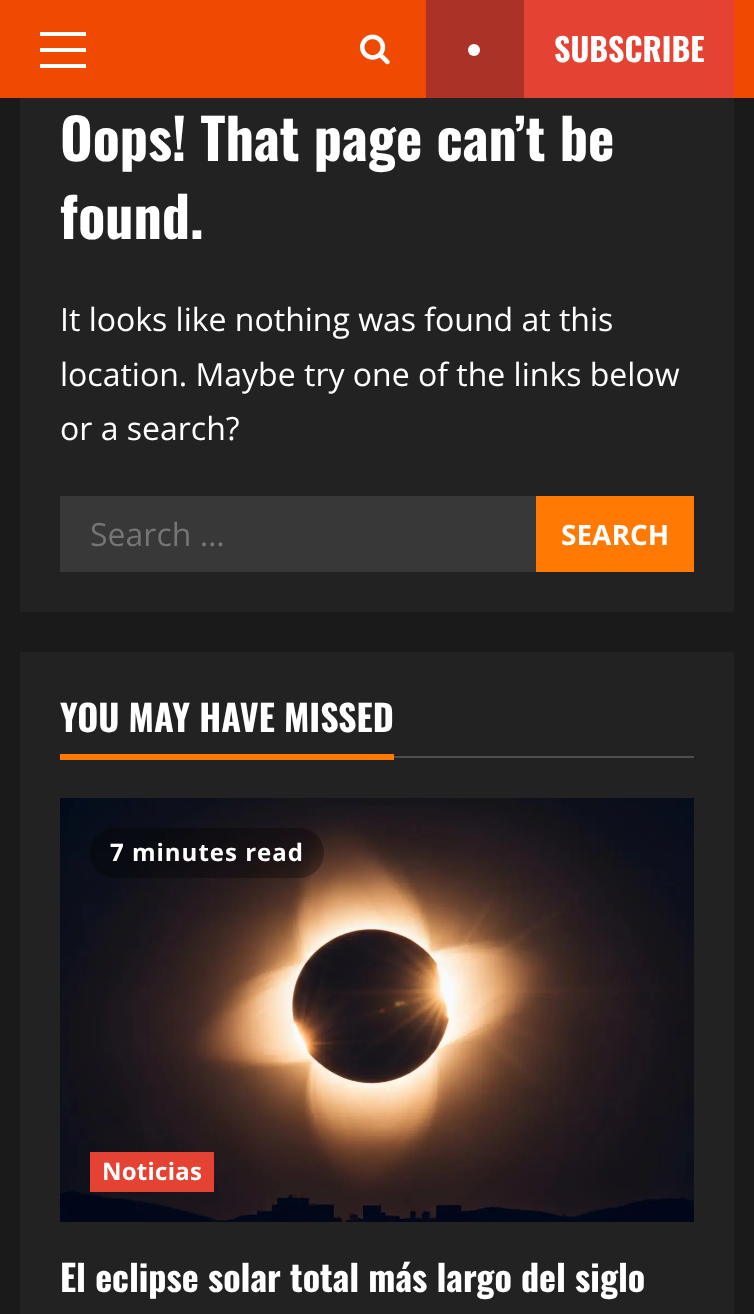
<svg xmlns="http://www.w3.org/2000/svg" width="754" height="1314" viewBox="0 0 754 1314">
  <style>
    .t1 { font: bold 32px Oswald; fill: #fff; }
    .t2 { font: bold 56px Oswald; fill: #fff; }
    .t3 { font: 32px Open Sans; fill: #fff; }
    .t4 { font: 32px Open Sans; fill: #757575; }
    .t5 { font: bold 28px Open Sans; fill: #fff; }
    .t6 { font: bold 36px Oswald; fill: #fff; }
    .t7 { font: bold 24px Open Sans; letter-spacing: 1px; fill: #fff; }
    .t8 { font: bold 24px Open Sans; letter-spacing: 0.25px; fill: #fff; }
  </style>
  <rect width="100%" height="100%" fill="#1a1a1a"/>
  <rect x="0" y="0" width="754" height="98" fill="#f04901"/>
  <rect x="40" y="48" width="46" height="4" fill="#fff"/>
  <rect x="40" y="32" width="46" height="4" fill="#fff"/>
  <rect x="40" y="64" width="46" height="4" fill="#fff"/>
  <image x="360" y="34" width="30" height="31" href="images/1.png"/>
  <rect x="524" y="0" width="210" height="98" fill="#e44233"/>
  <rect x="426" y="0" width="98" height="98" fill="#ab3226"/>
  <circle cx="474" cy="50" r="6" fill="#fff"/>
  <text x="554" y="62" class="t1">SUBSCRIBE</text>
  <rect x="20" y="98" width="714" height="514" fill="#222"/>
  <text x="60" y="161" class="t2">Oops! That page can’t be</text>
  <text x="60" y="239" class="t2">found.</text>
  <text x="60" y="331" class="t3">It looks like nothing was found at this</text>
  <text x="60" y="386" class="t3">location. Maybe try one of the links below</text>
  <text x="60" y="440" class="t3">or a search?</text>
  <rect x="60" y="496" width="476" height="76" fill="#383838"/>
  <text x="90" y="546" class="t4">Search …</text>
  <rect x="536" y="496" width="158" height="76" fill="#ff7903"/>
  <text x="561" y="545" class="t5">SEARCH</text>
  <rect x="20" y="652" width="714" height="662" fill="#222"/>
  <rect x="394" y="756" width="300" height="2" fill="#4e4e4e"/>
  <text x="60" y="732" class="t6">YOU MAY HAVE MISSED</text>
  <rect x="60" y="754" width="334" height="6" fill="#ff7903"/>
  <image x="60" y="798" width="634" height="424" href="images/2.png"/>
  <rect x="90" y="828" width="234" height="50" rx="25" fill="#0000004d"/>
  <text x="110" y="861" class="t7">7 minutes read</text>
  <rect x="90" y="1152" width="124" height="40" fill="#e44233"/>
  <text x="102" y="1180" class="t8">Noticias</text>
  <text x="60" y="1292" class="t6">El eclipse solar total más largo del siglo</text>
</svg>
